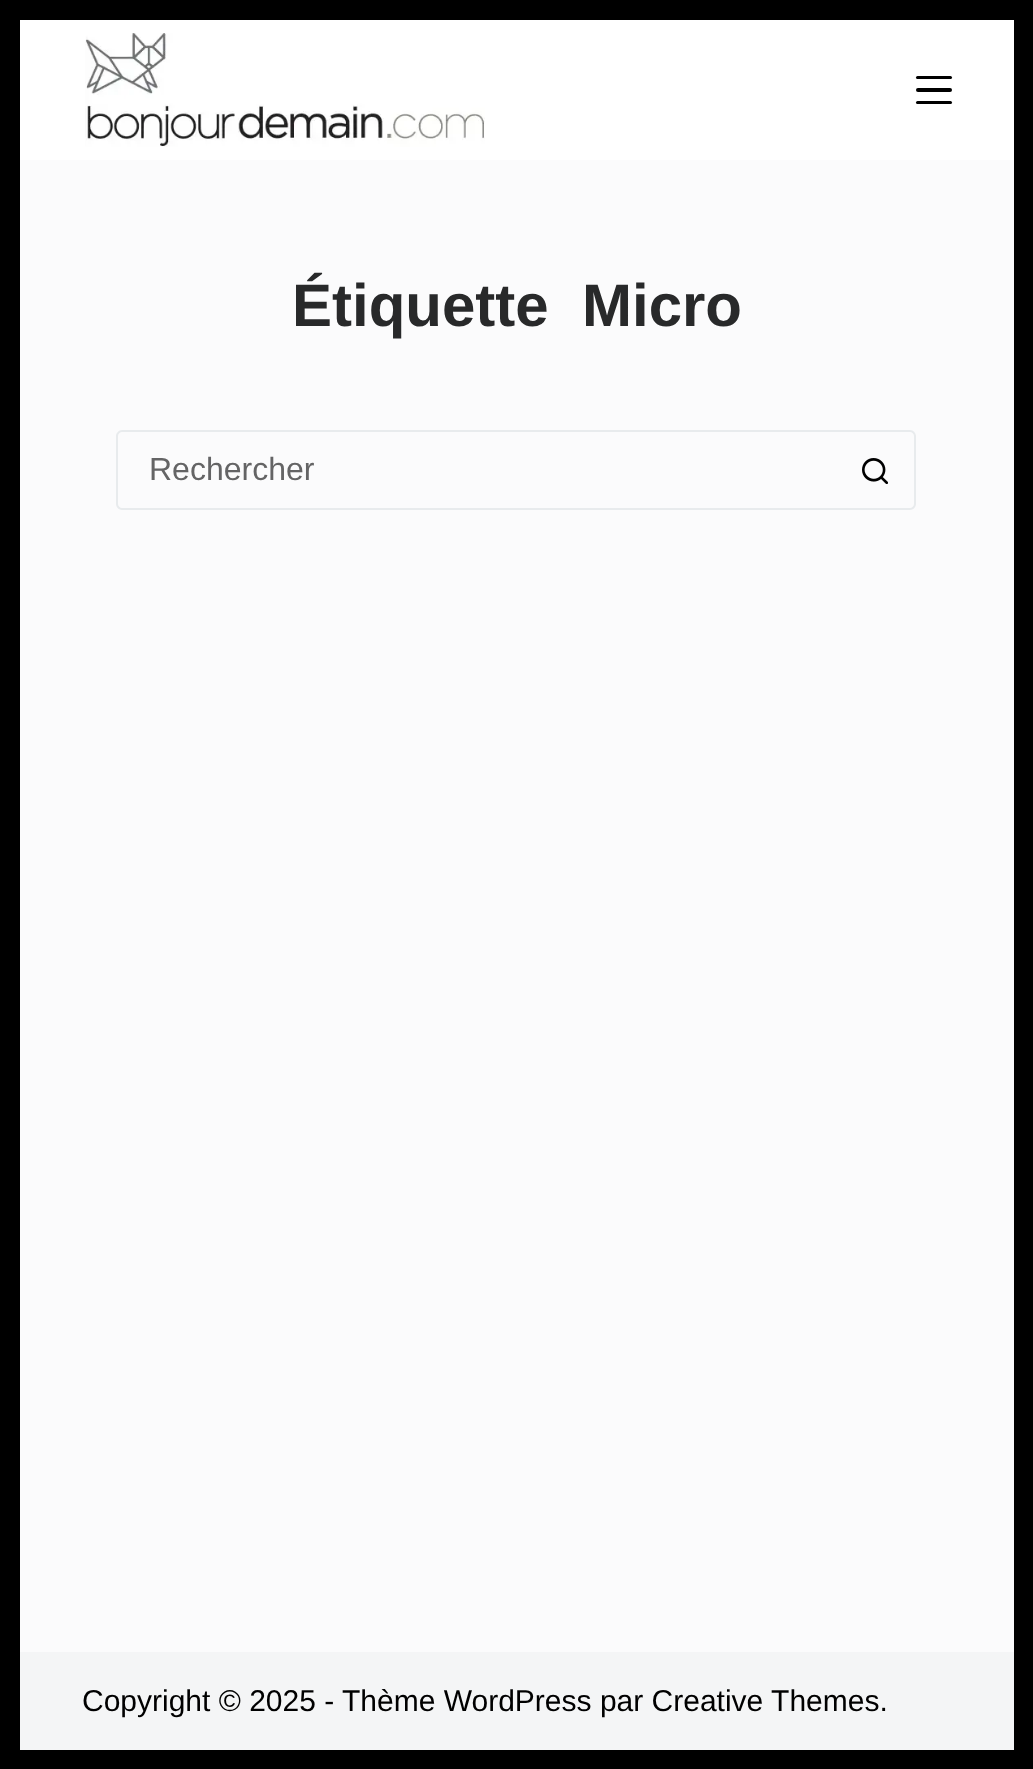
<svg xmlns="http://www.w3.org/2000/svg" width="1033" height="1769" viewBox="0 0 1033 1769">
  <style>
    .t1 { font: bold 60px Liberation Sans; fill: #28292a; }
    .t2 { font: 32px Liberation Sans; fill: #646465; }
    .t3 { font: 30px Liberation Sans; fill: #000; }
  </style>
  <rect width="100%" height="100%" fill="#fbfbfc"/>
  <rect x="10" y="10" width="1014" height="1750" fill="none" stroke="#000" stroke-width="20"/>
  <rect x="20" y="20" width="994" height="140" fill="#fff"/>
  <image x="85" y="33" width="400" height="114" href="images/1.png"/>
  <rect x="916" y="76" width="36" height="3" rx="1.5" fill="#000"/>
  <rect x="916" y="88" width="36" height="4" rx="2" fill="#000"/>
  <rect x="916" y="101" width="36" height="3" rx="1.5" fill="#000"/>
  <text x="292" y="326" class="t1">Étiquette</text>
  <text x="582" y="326" class="t1">Micro</text>
  <path d="M122 430H836V510H122C119 510 116 507 116 504V436C116 433 119 430 122 430ZM122 432H836V508H122C120 508 118 506 118 504V436C118 434 120 432 122 432Z" fill="#e8ebed" fill-rule="evenodd"/>
  <text x="149" y="480" class="t2">Rechercher</text>
  <path d="M836 430H910C913 430 916 433 916 436V504C916 507 913 510 910 510H836ZM836 432H910C912 432 914 434 914 436V504C914 506 912 508 910 508H836Z" fill="#e8ebed" fill-rule="evenodd"/>
  <image x="862" y="458" width="26" height="26" href="images/2.png"/>
  <rect x="20" y="1652" width="994" height="98" fill="#f4f5f6"/>
  <text x="82" y="1711" class="t3">Copyright © 2025 - Thème WordPress par Creative Themes.</text>
</svg>
